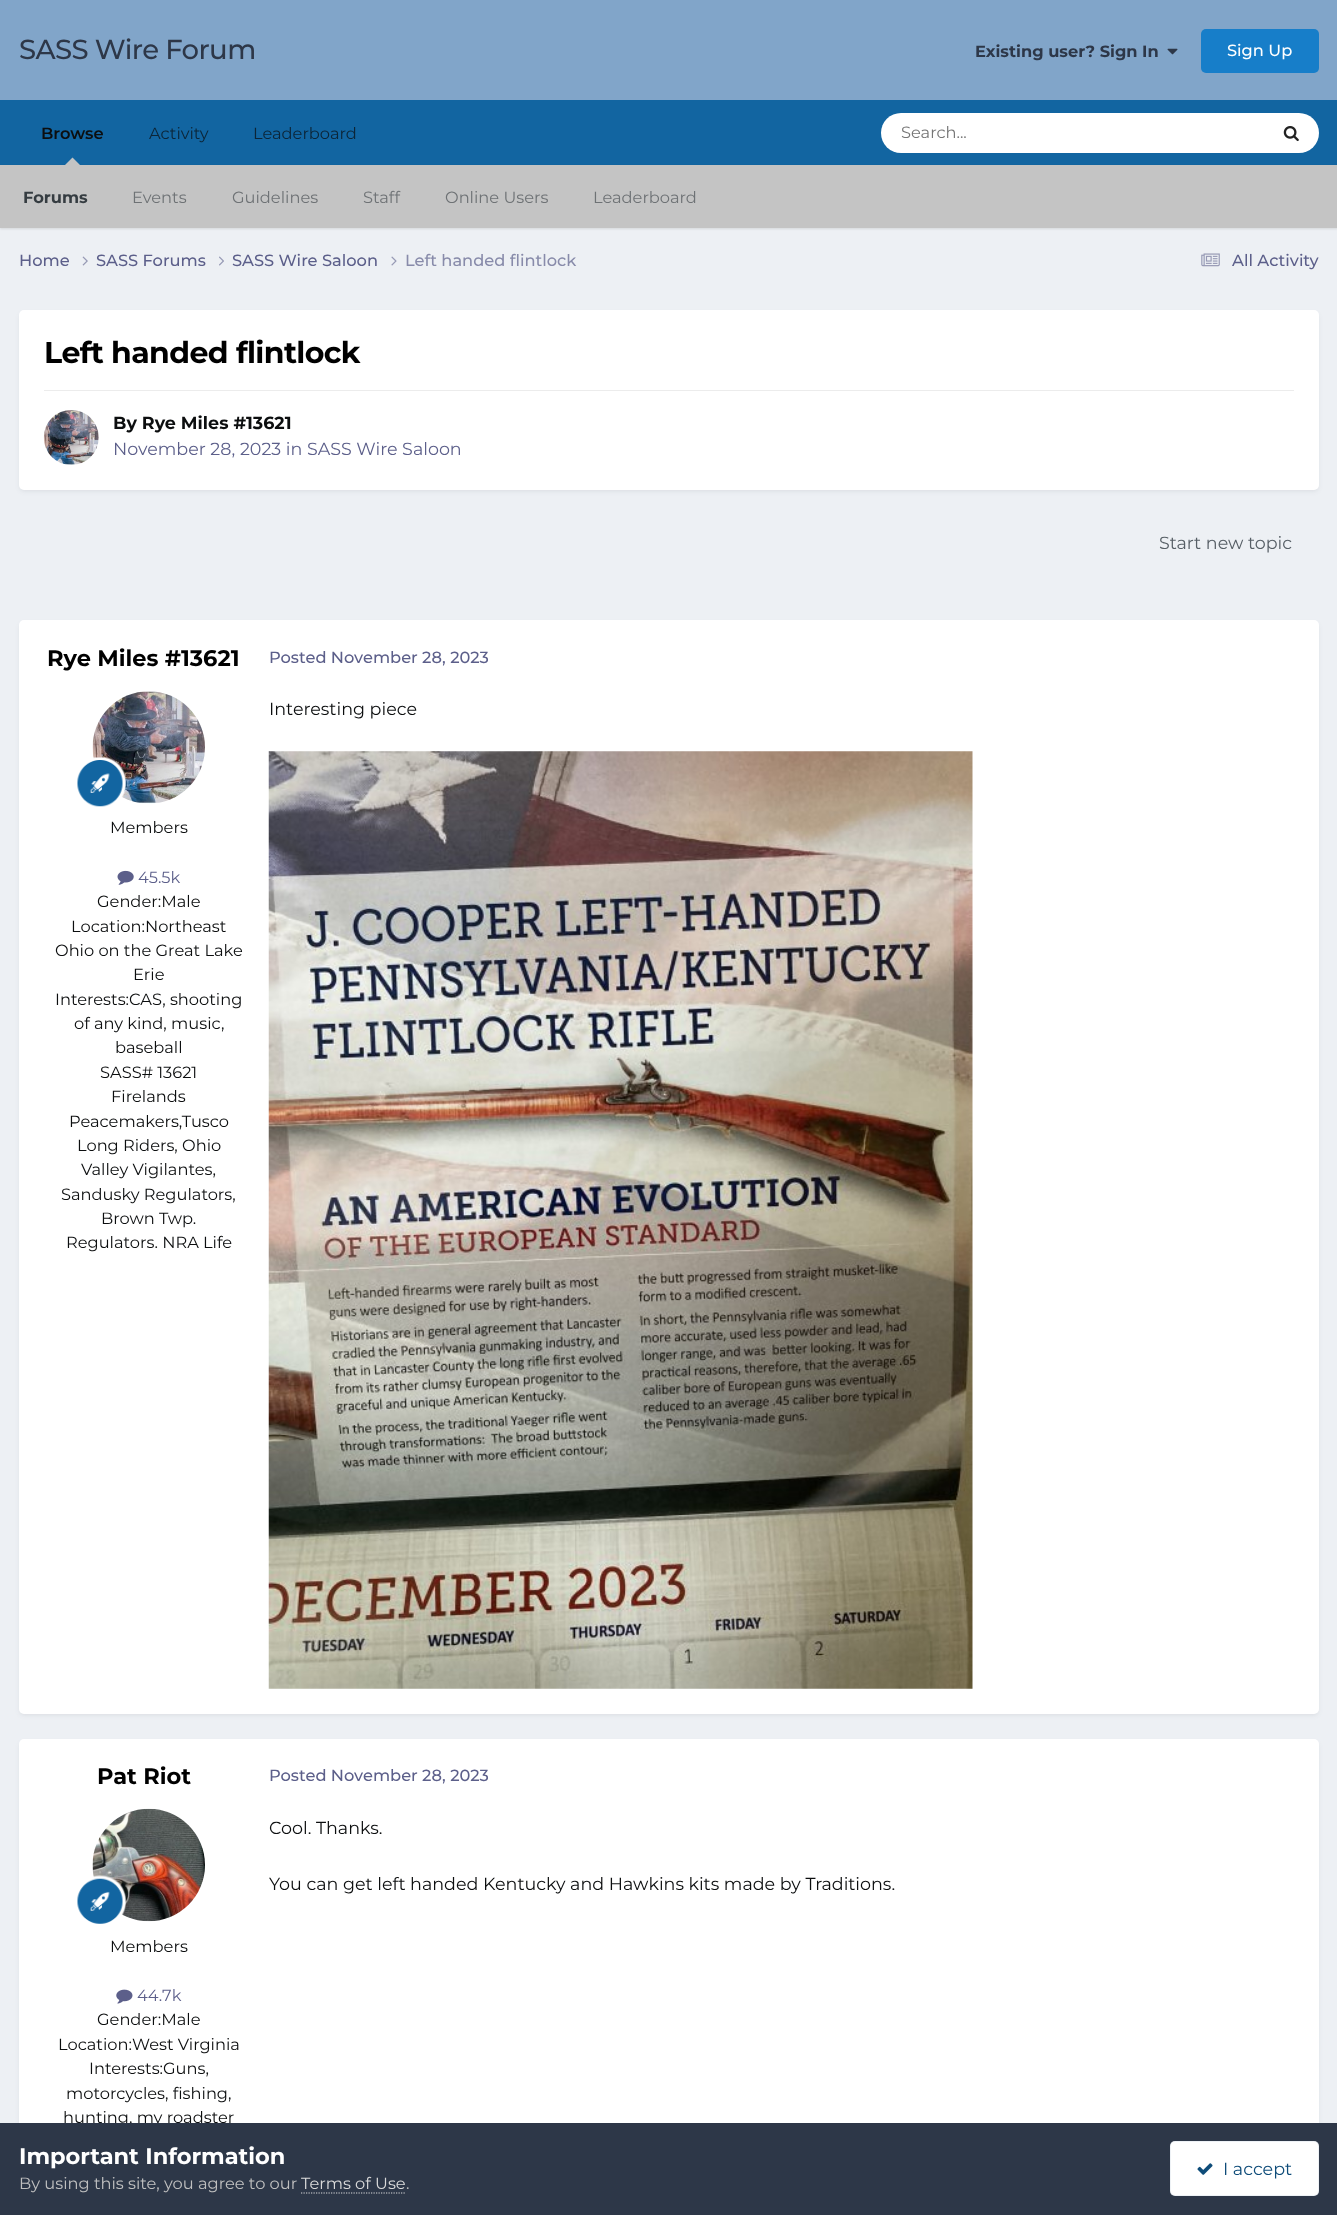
<svg xmlns="http://www.w3.org/2000/svg" width="1337" height="2215" viewBox="0 0 1337 2215">
  <style>
    .t1 { font: 500 27.5px Montserrat; letter-spacing: -0.6px; fill: #2d3748; }
    .t2 { font: bold 16.25px Montserrat; fill: #2d3748; }
    .t3 { font: 500 16.25px Montserrat; fill: #fff; }
    .t4 { font: 16.25px Montserrat; fill: #0c2537; }
    .t5 { font: 600 16.25px Montserrat; fill: #0c0e0f; }
    .t6 { font: bold 16.25px Montserrat; fill: #353c41; }
    .t7 { font: 16.25px Montserrat; fill: #6e7275; }
    .t8 { font: 16.25px Montserrat; fill: #757575; }
    .t9 { font: 500 16.25px Montserrat; fill: #5c5f8a; }
    .t10 { font: 500 16.25px Montserrat; fill: #888baa; }
    .t11 { font: bold 30px Montserrat; letter-spacing: -0.6px; fill: #000; }
    .t12 { font: bold 17.5px Montserrat; fill: #0c0e0f; }
    .t13 { font: 17.5px Montserrat; fill: #5c5f8a; }
    .t14 { font: 17.5px Montserrat; fill: #575f66; }
    .t15 { font: bold 22.5px Montserrat; fill: #000; }
    .t16 { font: 16.25px Montserrat; fill: #0c0e0f; }
    .t17 { font: 16.25px Montserrat; fill: #5c5f8a; }
    .t18 { font: 17.5px Montserrat; fill: #0c0e0f; }
    .t19 { font: bold 22.5px Montserrat; fill: #fff; }
    .t20 { font: 16.25px Montserrat; fill: #c0c0c0; }
    .t21 { font: 16.25px Montserrat; fill: #dadada; }
    .t22 { font: 17.5px Montserrat; fill: #0e4c79; }
  </style>
  <rect width="100%" height="100%" fill="#edf0f4"/>
  <rect x="0" y="0" width="1337" height="100" fill="#81a5c9"/>
  <text x="19" y="59" class="t1">SASS Wire Forum</text>
  <text x="975" y="57" class="t2">Existing user? Sign In</text>
  <image x="1167" y="48" width="11" height="7" href="images/1.png"/>
  <rect x="1201" y="29" width="118" height="44" rx="5" fill="#177ec9"/>
  <text x="1227" y="56" class="t3">Sign Up</text>
  <rect x="0" y="100" width="1337" height="65" fill="#1265a1"/>
  <text x="149" y="139" class="t4">Activity</text>
  <text x="253" y="139" class="t4">Leaderboard</text>
  <text x="41" y="139" class="t5">Browse</text>
  <rect x="0" y="166" width="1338" height="63" fill="#0000001a" filter="blur(1px)"/>
  <path d="M80 165H65L72.5 157.5Z" fill="#c4c4c4"/>
  <rect x="0" y="165" width="1337" height="63" fill="#c4c4c4"/>
  <text x="23" y="203" class="t6">Forums</text>
  <text x="132" y="203" class="t7">Events</text>
  <text x="232" y="203" class="t7">Guidelines</text>
  <text x="363" y="203" class="t7">Staff</text>
  <text x="445" y="203" class="t7">Online Users</text>
  <text x="593" y="203" class="t7">Leaderboard</text>
  <rect x="881" y="113" width="438" height="40" rx="20" fill="#fff"/>
  <text x="901" y="138" class="t8">Search...</text>
  <image x="1283" y="126" width="16" height="16" href="images/2.png"/>
  <text x="19" y="266" class="t9">Home</text>
  <image x="82" y="256" width="6" height="10" href="images/3.png"/>
  <text x="96" y="266" class="t9">SASS Forums</text>
  <image x="219" y="256" width="5" height="10" href="images/4.png"/>
  <text x="232" y="266" class="t9">SASS Wire Saloon</text>
  <image x="391" y="256" width="6" height="10" href="images/5.png"/>
  <text x="405" y="266" class="t10">Left handed flintlock</text>
  <image x="1201" y="253" width="19" height="14" href="images/6.png"/>
  <text x="1232" y="266" class="t9">All Activity</text>
  <rect x="20" y="314" width="1298" height="177" rx="4" fill="#2d37481a" filter="blur(2.5px)"/>
  <rect x="19" y="310" width="1300" height="180" rx="5" fill="#fff"/>
  <text x="44" y="363" class="t11">Left handed flintlock</text>
  <rect x="44" y="390" width="1250" height="1" fill="#ececec"/>
  <image x="43" y="410" width="56" height="55" href="images/7.png"/>
  <text x="113" y="429" class="t12">By Rye Miles #13621</text>
  <text x="113" y="455" class="t13">November 28, 2023 in SASS Wire Saloon</text>
  <text x="1159" y="549" class="t14">Start new topic</text>
  <rect x="20" y="624" width="1298" height="1091" rx="4" fill="#2d37481a" filter="blur(2.5px)"/>
  <rect x="19" y="620" width="1300" height="1094" rx="5" fill="#fff"/>
  <text x="47" y="666" class="t15">Rye Miles #13621</text>
  <image x="92" y="691" width="113" height="113" href="images/8.png"/>
  <image x="77" y="757" width="49" height="50" href="images/9.png"/>
  <text x="110" y="833" class="t16">Members</text>
  <image x="117" y="870" width="17" height="15" href="images/10.png"/>
  <text x="138" y="883" class="t17">45.5k</text>
  <text x="97" y="907" class="t16">Gender:Male</text>
  <text x="71" y="932" class="t16">Location:Northeast</text>
  <text x="55" y="956" class="t16">Ohio on the Great Lake</text>
  <text x="133" y="980" class="t16">Erie</text>
  <text x="55" y="1005" class="t16">Interests:CAS, shooting</text>
  <text x="74" y="1029" class="t16">of any kind, music,</text>
  <text x="115" y="1053" class="t16">baseball</text>
  <text x="100" y="1078" class="t16">SASS# 13621</text>
  <text x="111" y="1102" class="t16">Firelands</text>
  <text x="69" y="1127" class="t16">Peacemakers,Tusco</text>
  <text x="77" y="1151" class="t16">Long Riders, Ohio</text>
  <text x="81" y="1175" class="t16">Valley Vigilantes,</text>
  <text x="61" y="1200" class="t16">Sandusky Regulators,</text>
  <text x="101" y="1224" class="t16">Brown Twp.</text>
  <text x="66" y="1248" class="t16">Regulators. NRA Life</text>
  <text x="269" y="663" class="t9">Posted November 28, 2023</text>
  <text x="269" y="715" class="t18">Interesting piece</text>
  <image x="268" y="751" width="705" height="938" href="images/11.png"/>
  <rect x="20" y="1743" width="1298" height="462" rx="4" fill="#2d37481a" filter="blur(2.5px)"/>
  <rect x="19" y="1739" width="1300" height="465" rx="5" fill="#fff"/>
  <text x="97" y="1784" class="t15">Pat Riot</text>
  <image x="92" y="1808" width="113" height="114" href="images/12.png"/>
  <image x="77" y="1875" width="49" height="49" href="images/13.png"/>
  <text x="110" y="1952" class="t16">Members</text>
  <image x="116" y="1989" width="17" height="15" href="images/14.png"/>
  <text x="137" y="2001" class="t17">44.7k</text>
  <text x="97" y="2025" class="t16">Gender:Male</text>
  <text x="58" y="2050" class="t16">Location:</text>
  <text x="132" y="2050" class="t16">West Virginia</text>
  <text x="89" y="2074" class="t16">Interests:Guns,</text>
  <text x="66" y="2099" class="t16">motorcycles, fishing,</text>
  <text x="63" y="2123" class="t16">hunting, my roadster</text>
  <text x="269" y="1781" class="t9">Posted November 28, 2023</text>
  <text x="269" y="1834" class="t18">Cool. Thanks.</text>
  <text x="269" y="1890" class="t18">You can get left handed Kentucky and Hawkins kits made by Traditions.</text>
  <rect x="0" y="2123" width="1337" height="92" fill="#2d3748"/>
  <text x="19" y="2164" class="t19">Important Information</text>
  <text x="19" y="2189" class="t20">By using this site, you agree to our</text>
  <text x="301" y="2189" class="t21">Terms of Use</text>
  <path d="M301 2193H406" fill="none" stroke="#dadada" stroke-width="1.2" stroke-dasharray="1.25 1.25"/>
  <text x="406" y="2189" class="t20">.</text>
  <rect x="1170" y="2141" width="149" height="55" rx="5" fill="#fff"/>
  <rect x="1170.5" y="2141.5" width="148" height="54" rx="4.5" fill="none" stroke="#0e4c7912"/>
  <image x="1197" y="2163" width="16" height="12" href="images/15.png"/>
  <text x="1223" y="2175" class="t22">I accept</text>
</svg>
